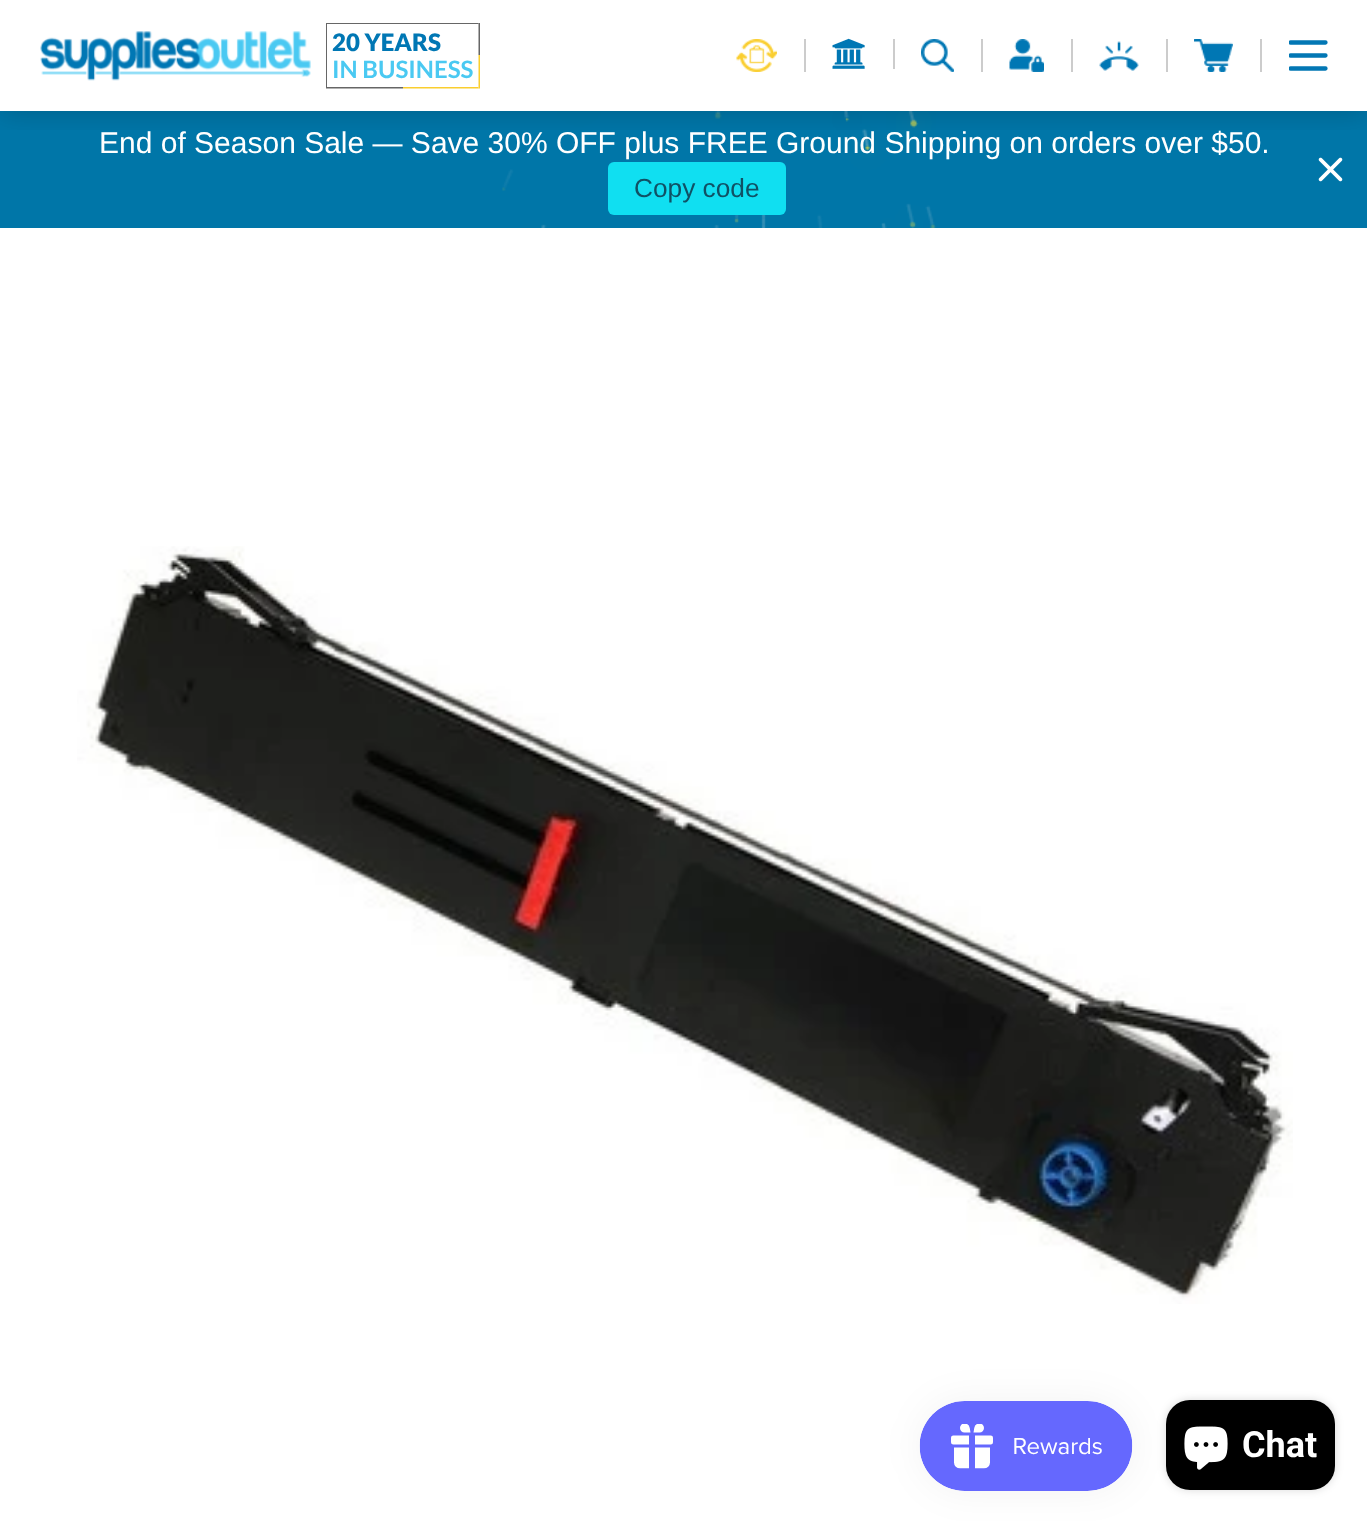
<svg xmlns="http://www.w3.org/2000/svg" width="1367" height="1521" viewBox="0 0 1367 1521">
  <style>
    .t1 { font: 900 24px Lato; fill: #0077b4; }
    .t2 { font: bold 24px Lato; fill: #4ac9f2; }
    .t3 { font: 30px Liberation Sans; fill: #fff; }
    .t4 { font: 26.25px Liberation Sans; fill: #105165; }
    .t5 { font: bold 36px Roboto; fill: #fff; }
  </style>
  <defs>
    <clipPath id="clip1"><rect x="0" y="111" width="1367" height="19"/></clipPath>
    <clipPath id="clip2"><rect x="1289" y="39" width="39" height="33"/></clipPath>
  </defs>
  <rect width="100%" height="100%" fill="#fff"/>
  <rect x="0" y="111" width="1367" height="117" fill="#0076a8"/>
  <image x="502" y="111" width="434" height="117" href="images/9.png"/>
  <g clip-path="url(#clip1)">
    <rect x="0" y="0" width="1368" height="111" fill="#00000033" filter="blur(15px)"/>
  </g>
  <image x="40" y="31" width="271" height="50" href="images/1.png"/>
  <image x="326" y="23" width="154" height="66" href="images/2.png"/>
  <text x="332" y="51" class="t1">20 YEARS</text>
  <text x="332" y="78" class="t2">IN BUSINESS</text>
  <rect x="804" y="39" width="2" height="33" fill="#ccc"/>
  <image x="736" y="39" width="41" height="33" href="images/3.png"/>
  <rect x="893" y="39" width="2" height="30" fill="#ccc"/>
  <image x="832" y="38" width="33" height="31" href="images/4.png"/>
  <rect x="981" y="39" width="2" height="33" fill="#ccc"/>
  <image x="921" y="39" width="33" height="33" href="images/5.png"/>
  <rect x="1071" y="39" width="2" height="33" fill="#ccc"/>
  <image x="1009" y="39" width="35" height="33" href="images/6.png"/>
  <rect x="1166" y="39" width="2" height="33" fill="#ccc"/>
  <image x="1099" y="41" width="40" height="30" href="images/7.png"/>
  <rect x="1260" y="39" width="2" height="33" fill="#ccc"/>
  <image x="1194" y="39" width="39" height="33" href="images/8.png"/>
  <g clip-path="url(#clip2)">
    <path d="M1290.5 68.5H1325.5M1290.5 55.5H1325.5M1290.5 42.5H1325.5" fill="none" stroke="#0277b4" stroke-width="4.3" stroke-linecap="round"/>
  </g>
  <text x="99" y="153" class="t3">End of Season Sale — Save 30% OFF plus FREE Ground Shipping on orders over $50.</text>
  <rect x="608" y="162" width="178" height="53" rx="6" fill="#10dff1"/>
  <text x="634" y="197" class="t4">Copy code</text>
  <image x="1318" y="157" width="25" height="25" href="images/10.png"/>
  <image x="77" y="546" width="1216" height="758" href="images/11.png"/>
  <rect x="1166" y="1400" width="169" height="90" rx="24" fill="#00000026" filter="blur(4px)"/>
  <rect x="1166" y="1400" width="169" height="90" rx="24" fill="#000"/>
  <image x="1184" y="1426" width="44" height="44" href="images/13.png"/>
  <rect x="920" y="1401" width="213" height="90" rx="45" fill="#0000000d" filter="blur(19px)"/>
  <image x="919" y="1401" width="214" height="90" href="images/12.png"/>
  <text x="1242" y="1457" class="t5">Chat</text>
</svg>
